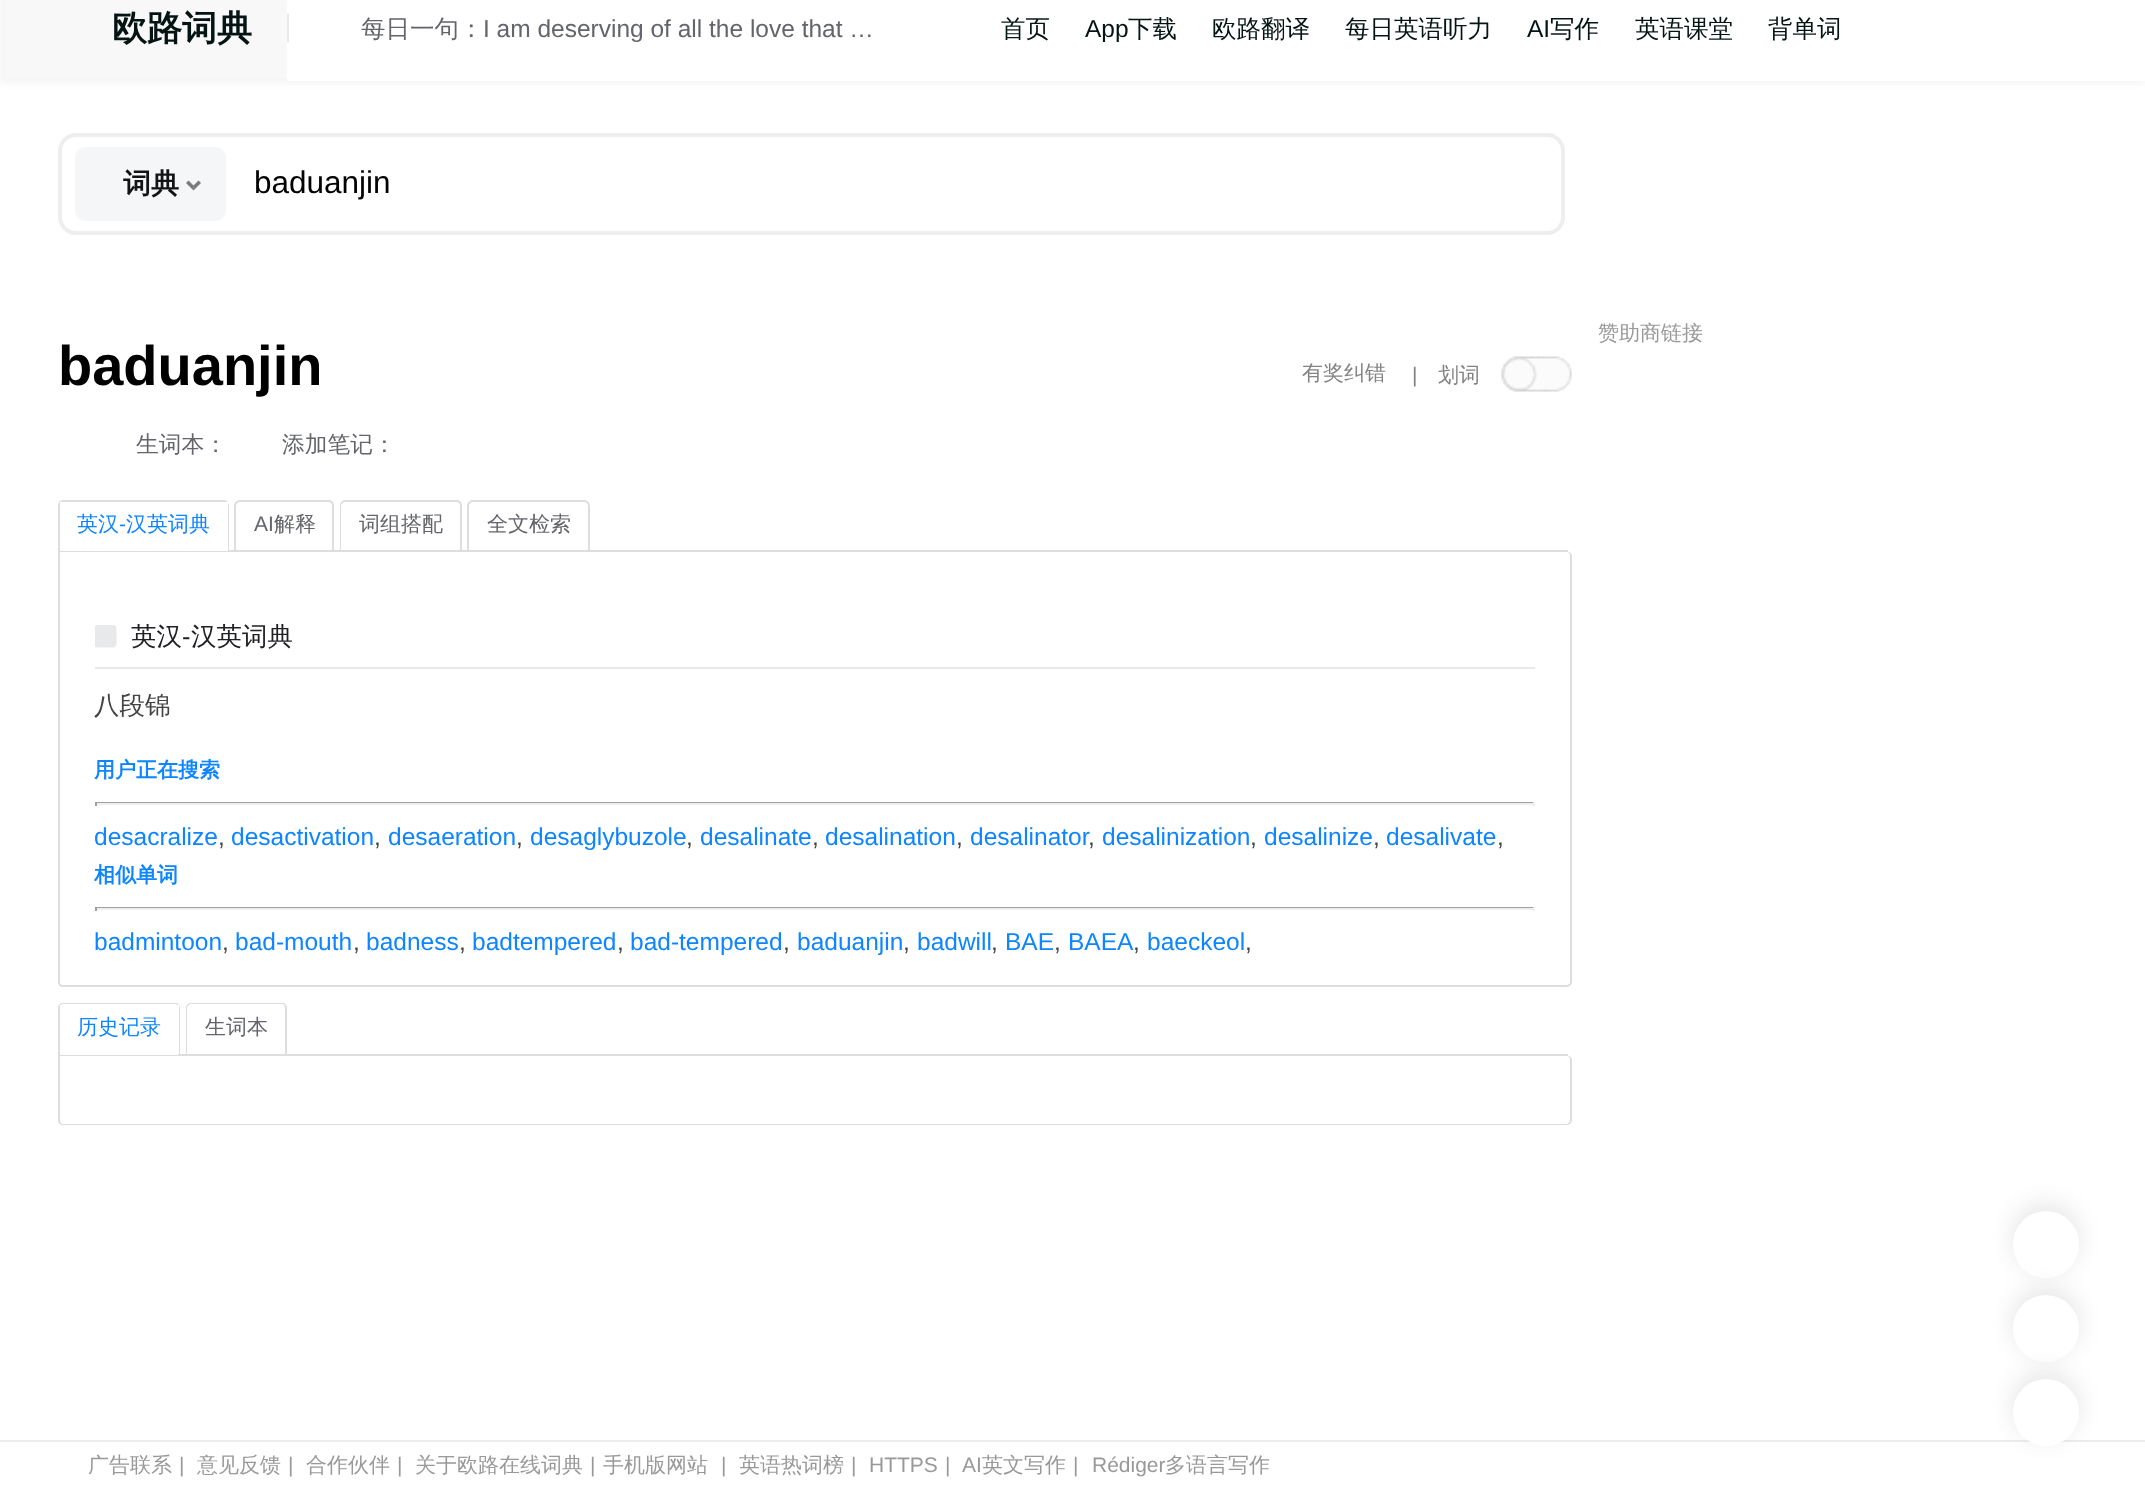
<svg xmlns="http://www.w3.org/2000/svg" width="2145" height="1497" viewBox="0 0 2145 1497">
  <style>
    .t1 { font: bold 35px WenQuanYi Zen Hei; fill: #041413; }
    .t2 { font: 500 24.5px WenQuanYi Zen Hei; fill: #63656b; }
    .t3 { font: 24.5px Liberation Sans; fill: #63656b; }
    .t4 { font: 500 24.5px WenQuanYi Zen Hei; fill: #041413; }
    .t5 { font: 24.5px Liberation Sans; fill: #041413; }
    .t6 { font: bold 28px WenQuanYi Zen Hei; fill: #131415; }
    .t7 { font: 31.5px Liberation Sans; fill: #000; }
    .t8 { font: 500 21px WenQuanYi Zen Hei; fill: #999; }
    .t9 { font: bold 56px Liberation Sans; fill: #000; }
    .t10 { font: 500 21px WenQuanYi Zen Hei; fill: #838383; }
    .t11 { font: 21px Liberation Sans; fill: #838383; }
    .t12 { font: 500 22.75px WenQuanYi Zen Hei; fill: #63656b; }
    .t13 { font: 500 21px WenQuanYi Zen Hei; fill: #0d85ff; }
    .t14 { font: 21px Liberation Sans; fill: #0d85ff; }
    .t15 { font: 21px Liberation Sans; fill: #63656b; }
    .t16 { font: 500 21px WenQuanYi Zen Hei; fill: #63656b; }
    .t17 { font: 500 25.5px WenQuanYi Zen Hei; fill: #202124; }
    .t18 { font: 25.5px Liberation Sans; fill: #202124; }
    .t19 { font: 500 25.5px WenQuanYi Zen Hei; fill: #444; }
    .t20 { font: bold 21px WenQuanYi Zen Hei; fill: #0d85ff; }
    .t21 { font: 24.5px Liberation Sans; fill: #0d85ff; }
    .t22 { font: 24.5px Liberation Sans; fill: #444; }
    .t23 { font: 21px Liberation Sans; fill: #999; }
  </style>
  <defs>
    <clipPath id="clip1"><rect x="95" y="621" width="1440" height="46"/></clipPath>
  </defs>
  <rect width="100%" height="100%" fill="#fff"/>
  <rect x="0" y="-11" width="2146" height="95" fill="#0000000a" filter="blur(3.5px)"/>
  <rect x="287" y="0" width="1858" height="81" fill="#fff"/>
  <rect x="6" y="0" width="281" height="78" fill="#f8f8f8"/>
  <text x="112" y="40" class="t1">欧路词典</text>
  <rect x="287" y="14" width="2" height="28" fill="#e8e9eb"/>
  <text x="361" y="37" class="t2">每日一句：</text>
  <text x="483" y="37" class="t3">I am deserving of all the love that …</text>
  <text x="1001" y="37" class="t4">首页</text>
  <text x="1085" y="37" class="t5">App</text>
  <text x="1128" y="37" class="t4">下载</text>
  <text x="1212" y="37" class="t4">欧路翻译</text>
  <text x="1345" y="37" class="t4">每日英语听力</text>
  <text x="1527" y="37" class="t5">AI</text>
  <text x="1550" y="37" class="t4">写作</text>
  <text x="1635" y="37" class="t4">英语课堂</text>
  <text x="1768" y="37" class="t4">背单词</text>
  <rect x="60" y="135" width="1503" height="98" rx="16" fill="none" stroke="#eee" stroke-width="4"/>
  <rect x="75" y="147" width="151" height="74" rx="11" fill="#f5f6f7"/>
  <text x="123" y="193" class="t6">词典</text>
  <path d="M201 183L193.5 190.5V185.5L198.5 180.5Z" fill="#7b7b7c"/>
  <path d="M193.5 190.5L186 183L188.5 180.5L193.5 185.5Z" fill="#00000080"/>
  <text x="254" y="193" class="t7">baduanjin</text>
  <text x="1598" y="340" class="t8">赞助商链接</text>
  <rect x="2013" y="1204" width="66" height="67" rx="33" fill="#0000001a" filter="blur(12px)"/>
  <rect x="2013" y="1211" width="66" height="67" rx="33" fill="#fff"/>
  <rect x="2013" y="1288" width="66" height="67" rx="33" fill="#0000001a" filter="blur(12px)"/>
  <rect x="2013" y="1295" width="66" height="67" rx="33" fill="#fff"/>
  <rect x="0" y="1440" width="2145" height="2" fill="#ededed"/>
  <rect x="2013" y="1372" width="66" height="67" rx="33" fill="#0000001a" filter="blur(12px)"/>
  <rect x="2013" y="1379" width="66" height="67" rx="33" fill="#fff"/>
  <text x="58" y="385" class="t9">baduanjin</text>
  <text x="1302" y="380" class="t10">有奖纠错</text>
  <text x="1412" y="382" class="t11">|</text>
  <text x="1438" y="382" class="t10">划词</text>
  <image x="1501" y="356" width="71" height="36" href="images/1.png"/>
  <text x="136" y="452" class="t12">生词本：</text>
  <text x="282" y="452" class="t12">添加笔记：</text>
  <rect x="58" y="550" width="1510" height="2" fill="#ddd"/>
  <path d="M63 501H224C227 501 229 503 229 506V551H58V506C58 503 60 501 63 501Z" fill="#fff"/>
  <path d="M63 500H224C227 500 229 503 229 506V551H58V506C58 503 60 500 63 500ZM63 502H224C226 502 228 504 228 506V551H60V506C60 504 61 502 63 502Z" fill="#ddd" fill-rule="evenodd"/>
  <rect x="60" y="502" width="168" height="3" fill="#fff"/>
  <text x="77" y="531" class="t13">英汉</text>
  <text x="119" y="531" class="t14">-</text>
  <text x="126" y="531" class="t13">汉英词典</text>
  <path d="M240 500H329C332 500 334 503 334 506V550H234V506C234 503 237 500 240 500ZM240 502H329C331 502 332 504 332 506V550H236V506C236 504 238 502 240 502Z" fill="#ddd" fill-rule="evenodd"/>
  <text x="254" y="531" class="t15">AI</text>
  <text x="274" y="531" class="t16">解释</text>
  <path d="M345 500H457C460 500 462 503 462 506V550H340V506C340 503 342 500 345 500ZM345 502H457C459 502 460 504 460 506V550H341V506C341 504 343 502 345 502Z" fill="#ddd" fill-rule="evenodd"/>
  <text x="359" y="531" class="t16">词组搭配</text>
  <path d="M472 500H584C587 500 590 503 590 506V550H467V506C467 503 470 500 472 500ZM472 502H584C586 502 588 504 588 506V550H469V506C469 504 471 502 472 502Z" fill="#ddd" fill-rule="evenodd"/>
  <text x="487" y="531" class="t16">全文检索</text>
  <path d="M58 551H1566C1569 551 1572 554 1572 556V982C1572 985 1569 987 1566 987H63C60 987 58 985 58 982ZM60 551H1566C1568 551 1570 554 1570 556V982C1570 984 1568 985 1566 985H63C61 985 60 984 60 982Z" fill="#ddd" fill-rule="evenodd"/>
  <rect x="95" y="667" width="1440" height="2" fill="#e8e9eb"/>
  <g clip-path="url(#clip1)">
    <path d="M116.5 628.5V644C116.5 646 115 647.5 113 647.5H97.5C95.5 647.5 94 646 94 644V628.5C94 626.5 95.5 625 97.5 625H113C115 625 116.5 626.5 116.5 628.5Z" fill="#e8e9eb"/>
  </g>
  <text x="131" y="645" class="t17">英汉</text>
  <text x="182" y="645" class="t18">-</text>
  <text x="191" y="645" class="t17">汉英词典</text>
  <text x="94" y="714" class="t19">八段锦</text>
  <text x="94" y="777" class="t20">用户正在搜索</text>
  <rect x="95" y="802" width="1440" height="1" fill="#9f9f9f"/>
  <rect x="1533" y="802" width="2" height="4" fill="#eee"/>
  <rect x="95" y="803" width="1440" height="2" fill="#eee"/>
  <rect x="95" y="802" width="2" height="4" fill="#9f9f9f"/>
  <text x="94" y="845" class="t21">desacralize</text>
  <text x="218" y="845" class="t22">,</text>
  <text x="231" y="845" class="t21">desactivation</text>
  <text x="374" y="845" class="t22">,</text>
  <text x="388" y="845" class="t21">desaeration</text>
  <text x="516" y="845" class="t22">,</text>
  <text x="530" y="845" class="t21">desaglybuzole</text>
  <text x="686" y="845" class="t22">,</text>
  <text x="700" y="845" class="t21">desalinate</text>
  <text x="812" y="845" class="t22">,</text>
  <text x="825" y="845" class="t21">desalination</text>
  <text x="956" y="845" class="t22">,</text>
  <text x="970" y="845" class="t21">desalinator</text>
  <text x="1088" y="845" class="t22">,</text>
  <text x="1102" y="845" class="t21">desalinization</text>
  <text x="1250" y="845" class="t22">,</text>
  <text x="1264" y="845" class="t21">desalinize</text>
  <text x="1373" y="845" class="t22">,</text>
  <text x="1386" y="845" class="t21">desalivate</text>
  <text x="1497" y="845" class="t22">,</text>
  <text x="94" y="882" class="t20">相似单词</text>
  <rect x="95" y="907" width="1440" height="1" fill="#9f9f9f"/>
  <rect x="1533" y="907" width="2" height="4" fill="#eee"/>
  <rect x="95" y="908" width="1440" height="2" fill="#eee"/>
  <rect x="95" y="907" width="2" height="4" fill="#9f9f9f"/>
  <text x="94" y="950" class="t21">badmintoon</text>
  <text x="222" y="950" class="t22">,</text>
  <text x="235" y="950" class="t21">bad-mouth</text>
  <text x="353" y="950" class="t22">,</text>
  <text x="366" y="950" class="t21">badness</text>
  <text x="459" y="950" class="t22">,</text>
  <text x="472" y="950" class="t21">badtempered</text>
  <text x="617" y="950" class="t22">,</text>
  <text x="630" y="950" class="t21">bad-tempered</text>
  <text x="783" y="950" class="t22">,</text>
  <text x="797" y="950" class="t21">baduanjin</text>
  <text x="903" y="950" class="t22">,</text>
  <text x="917" y="950" class="t21">badwill</text>
  <text x="991" y="950" class="t22">,</text>
  <text x="1005" y="950" class="t21">BAE</text>
  <text x="1054" y="950" class="t22">,</text>
  <text x="1068" y="950" class="t21">BAEA</text>
  <text x="1133" y="950" class="t22">,</text>
  <text x="1147" y="950" class="t21">baeckeol</text>
  <text x="1245" y="950" class="t22">,</text>
  <path d="M58 1055H1566C1569 1055 1572 1058 1572 1060V1120C1572 1123 1569 1125 1566 1125H63C60 1125 58 1123 58 1120ZM60 1055H1566C1568 1055 1570 1058 1570 1060V1120C1570 1122 1568 1124 1566 1124H63C61 1124 60 1122 60 1120Z" fill="#ddd" fill-rule="evenodd"/>
  <rect x="58" y="1054" width="1510" height="2" fill="#ddd"/>
  <path d="M63 1003H175C178 1003 180 1005 180 1008V1055H58V1008C58 1005 60 1003 63 1003Z" fill="#fff"/>
  <path d="M63 1003H175C178 1003 180 1005 180 1008V1055H58V1008C58 1005 60 1003 63 1003ZM63 1004H175C177 1004 178 1006 178 1008V1055H60V1008C60 1006 61 1004 63 1004Z" fill="#ddd" fill-rule="evenodd"/>
  <rect x="60" y="1005" width="119" height="49" fill="#fff"/>
  <text x="77" y="1034" class="t13">历史记录</text>
  <path d="M191 1003H282C285 1003 287 1005 287 1008V1054H186V1008C186 1005 188 1003 191 1003ZM191 1004H282C284 1004 285 1006 285 1008V1054H187V1008C187 1006 189 1004 191 1004Z" fill="#ddd" fill-rule="evenodd"/>
  <text x="205" y="1034" class="t16">生词本</text>
  <text x="88" y="1472" class="t8">广告联系</text>
  <text x="179" y="1472" class="t23">|</text>
  <text x="197" y="1472" class="t8">意见反馈</text>
  <text x="288" y="1472" class="t23">|</text>
  <text x="306" y="1472" class="t8">合作伙伴</text>
  <text x="397" y="1472" class="t23">|</text>
  <text x="415" y="1472" class="t8">关于欧路在线词典</text>
  <text x="590" y="1472" class="t23">|</text>
  <text x="603" y="1472" class="t8">手机版网站</text>
  <text x="721" y="1472" class="t23">|</text>
  <text x="739" y="1472" class="t8">英语热词榜</text>
  <text x="851" y="1472" class="t23">|</text>
  <text x="869" y="1472" class="t23">HTTPS</text>
  <text x="945" y="1472" class="t23">|</text>
  <text x="962" y="1472" class="t23">AI</text>
  <text x="982" y="1472" class="t8">英文写作</text>
  <text x="1073" y="1472" class="t23">|</text>
  <text x="1092" y="1472" class="t23">Rédiger</text>
  <text x="1165" y="1472" class="t8">多语言写作</text>
</svg>
